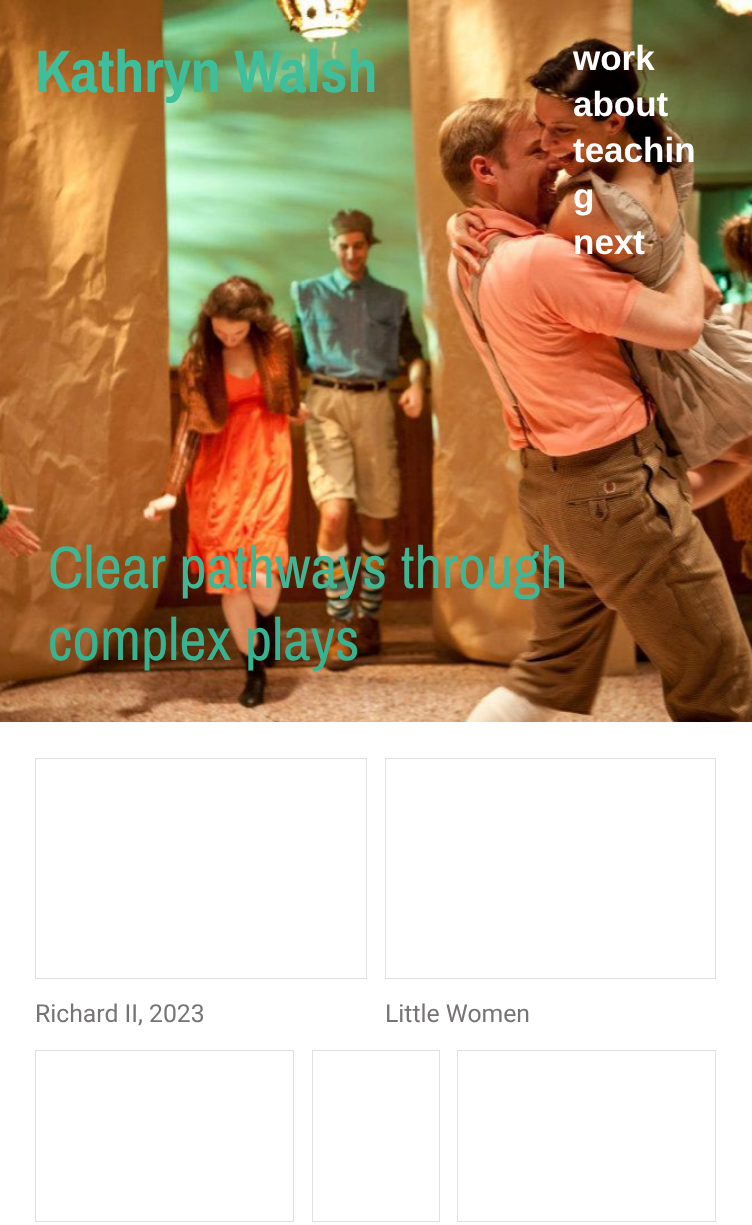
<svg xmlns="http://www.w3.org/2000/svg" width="752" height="1225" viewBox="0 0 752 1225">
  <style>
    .t1 { font: bold 60px Archivo Narrow; fill: #3ebe9a; }
    .t2 { font: bold 35px Liberation Sans; fill: #fff; }
    .t3 { font: 60px Archivo Narrow; fill: #40b694; }
    .t4 { font: 60px Archivo Narrow; fill: #38b291; }
    .t5 { font: 24.75px Roboto; fill: #777474; }
  </style>
  <rect width="100%" height="100%" fill="#fff"/>
  <image x="0" y="0" width="752" height="722" href="images/1.png"/>
  <text x="35" y="92" class="t1">Kathryn Walsh</text>
  <text x="573" y="70" class="t2">work</text>
  <text x="573" y="116" class="t2">about</text>
  <text x="573" y="162" class="t2">teachin</text>
  <text x="573" y="208" class="t2">g</text>
  <text x="573" y="254" class="t2">next</text>
  <text x="48" y="588" class="t3">Clear pathways through</text>
  <text x="48" y="660" class="t4">complex plays</text>
  <rect x="35.5" y="758.5" width="331" height="220" fill="none" stroke="#e0e0e0"/>
  <text x="35" y="1022" class="t5">Richard II, 2023</text>
  <rect x="385.5" y="758.5" width="330" height="220" fill="none" stroke="#e0e0e0"/>
  <text x="385" y="1022" class="t5">Little Women</text>
  <rect x="35.5" y="1050.5" width="258" height="171" fill="none" stroke="#e0e0e0"/>
  <rect x="312.5" y="1050.5" width="127" height="171" fill="none" stroke="#e0e0e0"/>
  <rect x="457.5" y="1050.5" width="258" height="171" fill="none" stroke="#e0e0e0"/>
</svg>
